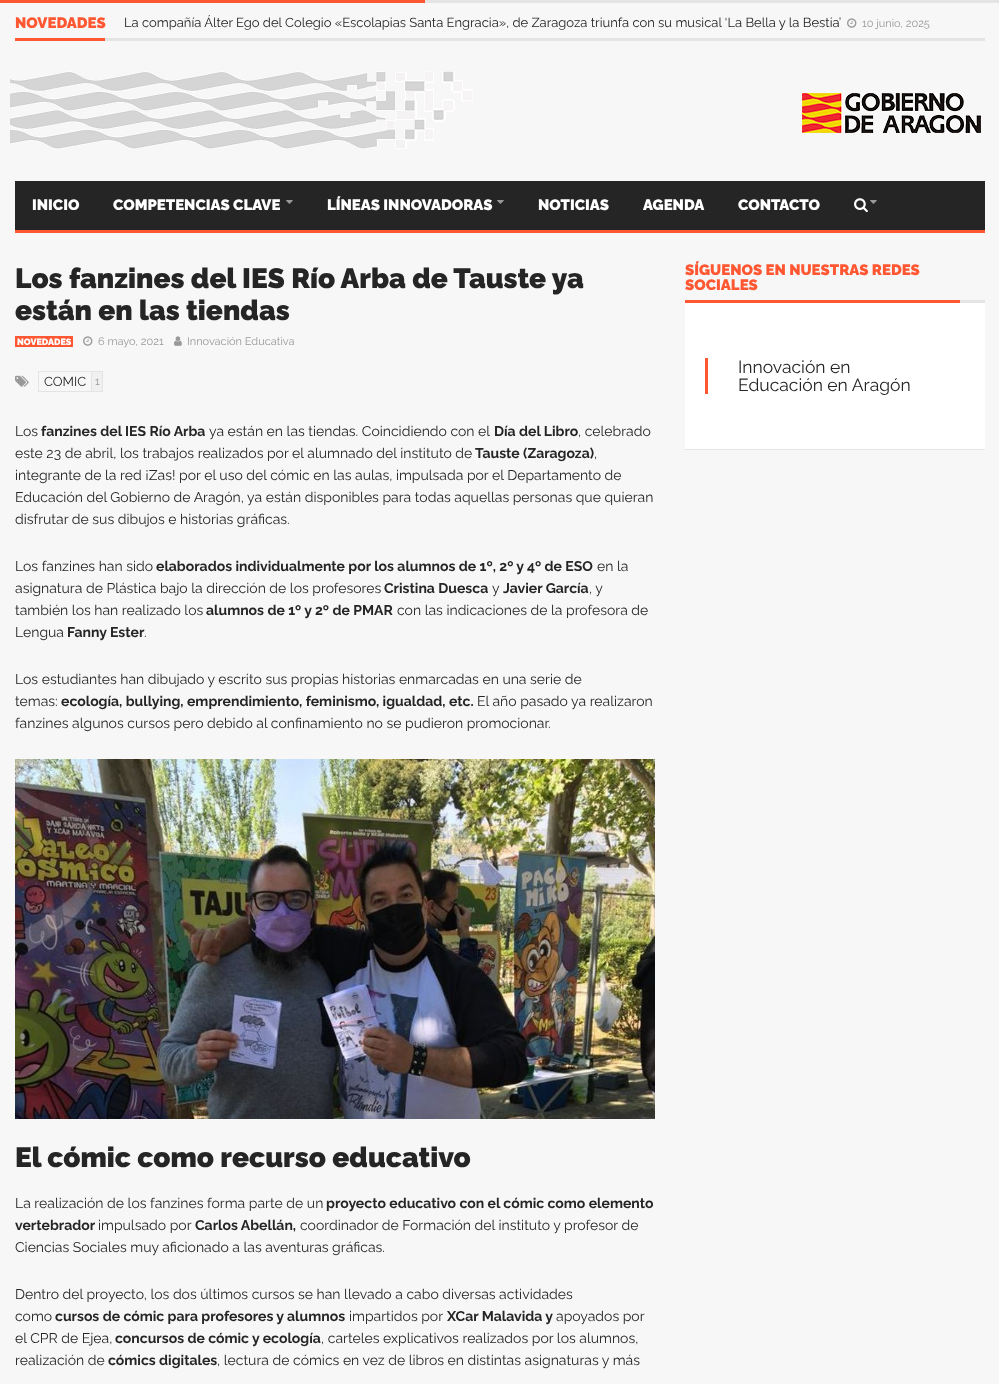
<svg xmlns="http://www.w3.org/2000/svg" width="999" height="1384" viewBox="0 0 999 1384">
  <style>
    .t1 { font: 900 15px Raleway; fill: #ff5732; }
    .t2 { font: 13px Raleway; fill: #252525; }
    .t3 { font: 11px Raleway; fill: #999; }
    .t4 { font: 900 15px Raleway; fill: #fff; }
    .t5 { font: 900 28px Raleway; fill: #252525; }
    .t6 { font: 900 9px Raleway; fill: #fff; }
    .t7 { font: 14px Raleway; fill: #252525; }
    .t8 { font: bold 14px Raleway; fill: #252525; }
    .t9 { font: 17.5px Raleway; fill: #252525; }
  </style>
  <rect width="100%" height="100%" fill="#f7f7f7"/>
  <rect x="425" y="0" width="574" height="3" fill="#e4e4e4"/>
  <rect x="0" y="0" width="425" height="3" fill="#ff5732"/>
  <rect x="105" y="38" width="880" height="3" fill="#e4e4e4"/>
  <rect x="15" y="38" width="90" height="3" fill="#ff5732"/>
  <text x="15" y="28" class="t1">NOVEDADES</text>
  <text x="124" y="27" class="t2">La compañía Álter Ego del Colegio «Escolapias Santa Engracia», de Zaragoza triunfa con su musical ‘La Bella y la Bestia’</text>
  <image x="847" y="18" width="10" height="10" href="images/1.png"/>
  <text x="862" y="27" class="t3">10 junio, 2025</text>
  <image x="10" y="71" width="971" height="78" href="images/2.png"/>
  <rect x="15" y="230" width="970" height="3" fill="#ff5732"/>
  <rect x="15" y="181" width="970" height="49" fill="#252525"/>
  <text x="32" y="210" class="t4">INICIO</text>
  <text x="113" y="210" class="t4">COMPETENCIAS CLAVE</text>
  <image x="286" y="200" width="7" height="4" href="images/3.png"/>
  <text x="327" y="210" class="t4">LÍNEAS INNOVADORAS</text>
  <image x="497" y="200" width="7" height="4" href="images/3.png"/>
  <text x="538" y="210" class="t4">NOTICIAS</text>
  <text x="643" y="210" class="t4">AGENDA</text>
  <text x="738" y="210" class="t4">CONTACTO</text>
  <image x="854" y="198" width="14" height="15" href="images/4.png"/>
  <image x="870" y="200" width="7" height="4" href="images/3.png"/>
  <text x="15" y="288" class="t5">Los fanzines del IES Río Arba de Tauste ya</text>
  <text x="15" y="320" class="t5">están en las tiendas</text>
  <rect x="15" y="336" width="58" height="11" fill="#ff5732"/>
  <text x="17" y="345" class="t6">NOVEDADES</text>
  <image x="83" y="336" width="10" height="10" href="images/1.png"/>
  <text x="98" y="345" class="t3">6 mayo, 2021</text>
  <image x="174" y="336" width="8" height="10" href="images/5.png"/>
  <text x="187" y="345" class="t3">Innovación Educativa</text>
  <image x="15" y="375" width="14" height="12" href="images/6.png"/>
  <rect x="38.5" y="371.5" width="64" height="20" fill="none" stroke="#e4e4e4"/>
  <text x="44" y="386" class="t2">COMIC</text>
  <rect x="92" y="372" width="10" height="19" fill="#f0f0f0"/>
  <rect x="91" y="372" width="1" height="19" fill="#e4e4e4"/>
  <text x="95" y="385" class="t3">1</text>
  <text x="15" y="436" class="t7">Los</text>
  <text x="41" y="436" class="t8">fanzines del IES Río Arba</text>
  <text x="209" y="436" class="t7">ya están en las tiendas. Coincidiendo con el</text>
  <text x="494" y="436" class="t8">Día del Libro</text>
  <text x="578" y="436" class="t7">, celebrado</text>
  <text x="15" y="458" class="t7">este 23 de abril, los trabajos realizados por el alumnado del instituto de</text>
  <text x="475" y="458" class="t8">Tauste (Zaragoza)</text>
  <text x="594" y="458" class="t7">,</text>
  <text x="15" y="480" class="t7">integrante de la red ¡Zas! por el uso del cómic en las aulas, impulsada por el Departamento de</text>
  <text x="15" y="502" class="t7">Educación del Gobierno de Aragón, ya están disponibles para todas aquellas personas que quieran</text>
  <text x="15" y="524" class="t7">disfrutar de sus dibujos e historias gráficas.</text>
  <text x="15" y="571" class="t7">Los fanzines han sido</text>
  <text x="156" y="571" class="t8">elaborados individualmente por los alumnos de 1º, 2º y 4º de ESO</text>
  <text x="597" y="571" class="t7">en la</text>
  <text x="15" y="593" class="t7">asignatura de Plástica bajo la dirección de los profesores</text>
  <text x="384" y="593" class="t8">Cristina Duesca</text>
  <text x="492" y="593" class="t7">y</text>
  <text x="503" y="593" class="t8">Javier García</text>
  <text x="589" y="593" class="t7">, y</text>
  <text x="15" y="615" class="t7">también los han realizado los</text>
  <text x="206" y="615" class="t8">alumnos de 1º y 2º de PMAR</text>
  <text x="397" y="615" class="t7">con las indicaciones de la profesora de</text>
  <text x="15" y="637" class="t7">Lengua</text>
  <text x="67" y="637" class="t8">Fanny Ester</text>
  <text x="144" y="637" class="t7">.</text>
  <text x="15" y="684" class="t7">Los estudiantes han dibujado y escrito sus propias historias enmarcadas en una serie de</text>
  <text x="15" y="706" class="t7">temas:</text>
  <text x="61" y="706" class="t8">ecología, bullying, emprendimiento, feminismo, igualdad, etc.</text>
  <text x="477" y="706" class="t7">El año pasado ya realizaron</text>
  <text x="15" y="728" class="t7">fanzines algunos cursos pero debido al confinamiento no se pudieron promocionar.</text>
  <image x="15" y="759" width="640" height="360" href="images/7.png"/>
  <text x="15" y="1167" class="t5">El cómic como recurso educativo</text>
  <text x="15" y="1208" class="t7">La realización de los fanzines forma parte de un</text>
  <text x="326" y="1208" class="t8">proyecto educativo con el cómic como elemento</text>
  <text x="15" y="1230" class="t8">vertebrador</text>
  <text x="98" y="1230" class="t7">impulsado por</text>
  <text x="195" y="1230" class="t8">Carlos Abellán,</text>
  <text x="300" y="1230" class="t7">coordinador de Formación del instituto y profesor de</text>
  <text x="15" y="1252" class="t7">Ciencias Sociales muy aficionado a las aventuras gráficas.</text>
  <text x="15" y="1299" class="t7">Dentro del proyecto, los dos últimos cursos se han llevado a cabo diversas actividades</text>
  <text x="15" y="1321" class="t7">como</text>
  <text x="55" y="1321" class="t8">cursos de cómic para profesores y alumnos</text>
  <text x="349" y="1321" class="t7">impartidos por</text>
  <text x="447" y="1321" class="t8">XCar Malavida y</text>
  <text x="556" y="1321" class="t7">apoyados por</text>
  <text x="15" y="1343" class="t7">el CPR de Ejea,</text>
  <text x="115" y="1343" class="t8">concursos de cómic y ecología</text>
  <text x="321" y="1343" class="t7">, carteles explicativos realizados por los alumnos,</text>
  <text x="15" y="1365" class="t7">realización de</text>
  <text x="108" y="1365" class="t8">cómics digitales</text>
  <text x="217" y="1365" class="t7">, lectura de cómics en vez de libros en distintas asignaturas y más</text>
  <rect x="960" y="300" width="25" height="3" fill="#e4e4e4"/>
  <rect x="685" y="300" width="275" height="3" fill="#ff5732"/>
  <text x="685" y="275" class="t1">SÍGUENOS EN NUESTRAS REDES</text>
  <text x="685" y="290" class="t1">SOCIALES</text>
  <rect x="685" y="303" width="300" height="146" fill="#fff"/>
  <rect x="685" y="449" width="300" height="1" fill="#e4e4e4"/>
  <rect x="705" y="358" width="3" height="36" fill="#ff5732"/>
  <text x="738" y="373" class="t9">Innovación en</text>
  <text x="738" y="391" class="t9">Educación en Aragón</text>
</svg>
